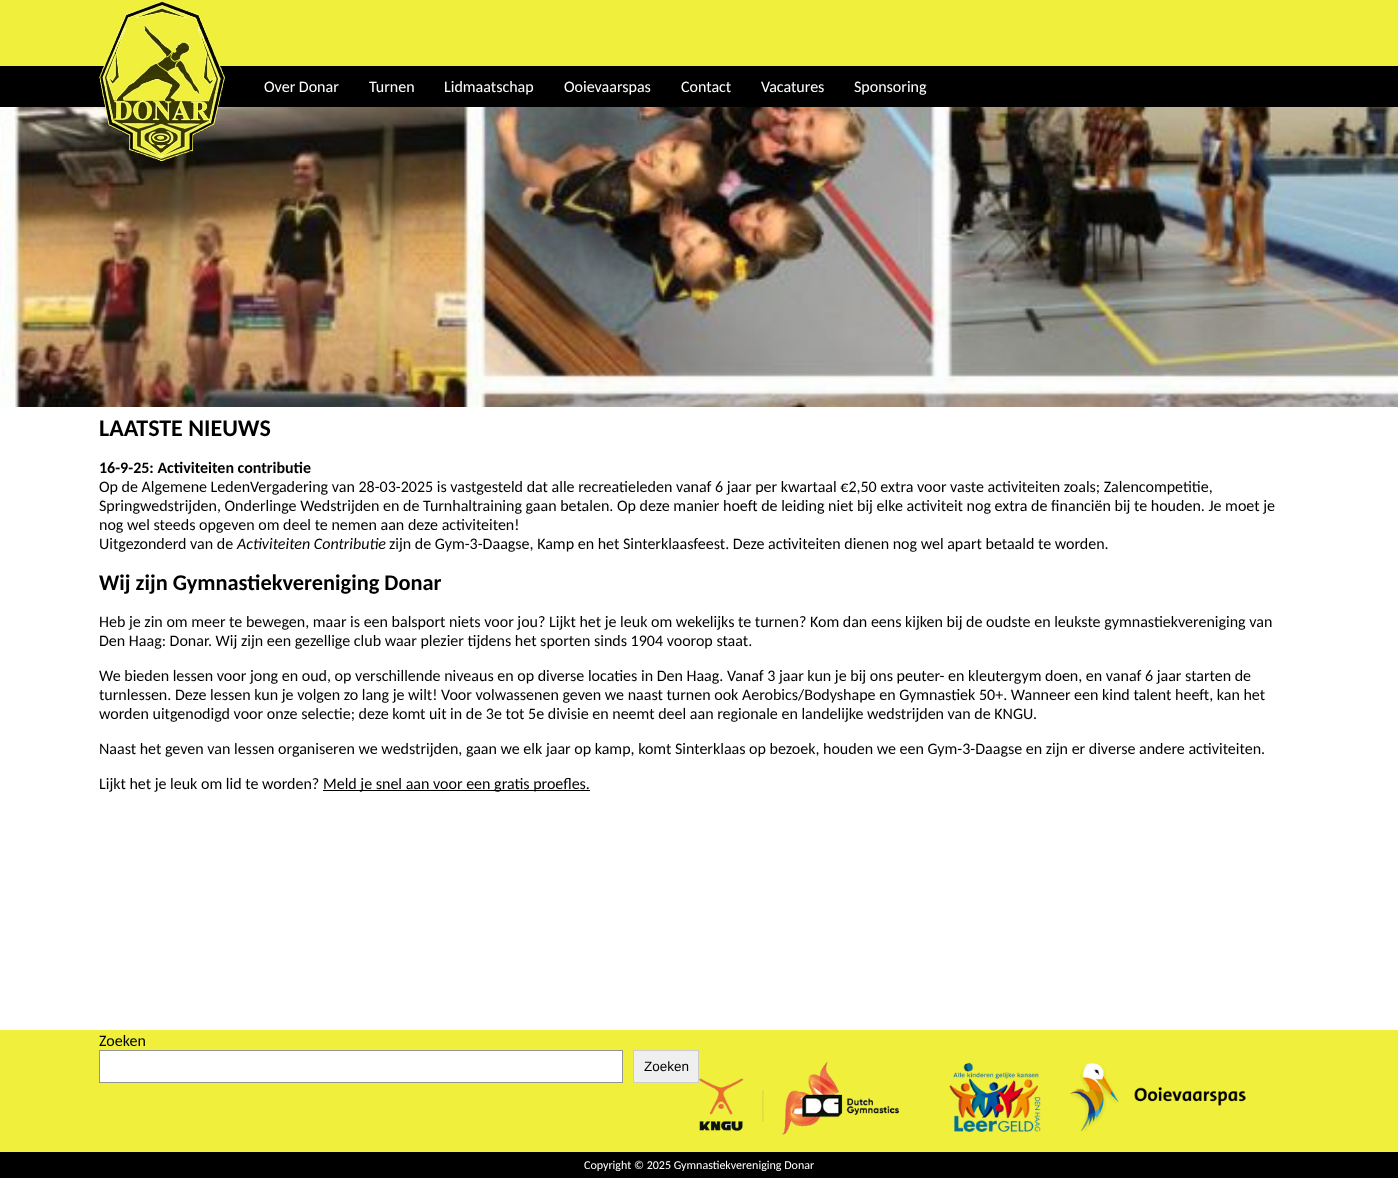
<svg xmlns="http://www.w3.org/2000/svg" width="1398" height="1178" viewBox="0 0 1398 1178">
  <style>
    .t1 { font: 16px Carlito; fill: #fff; }
    .t2 { font: bold 24px Carlito; fill: #000; }
    .t3 { font: bold 16px Carlito; fill: #000; }
    .t4 { font: 16px Carlito; fill: #000; }
    .t5 { font: italic 16px Carlito; fill: #000; }
    .t6 { font: bold 22.4px Carlito; fill: #000; }
    .t7 { font: 13.5px Liberation Sans; fill: #000; }
    .t8 { font: 12px Carlito; fill: #fff; }
  </style>
  <rect width="100%" height="100%" fill="#fff"/>
  <rect x="0" y="0" width="1398" height="66" fill="#efef3c"/>
  <rect x="0" y="66" width="1398" height="41" fill="#000"/>
  <image x="0" y="107" width="1398" height="300" href="images/2.png"/>
  <image x="99" y="1" width="126" height="160" href="images/1.png"/>
  <text x="264" y="92" class="t1">Over Donar</text>
  <text x="369" y="92" class="t1">Turnen</text>
  <text x="444" y="92" class="t1">Lidmaatschap</text>
  <text x="564" y="92" class="t1">Ooievaarspas</text>
  <text x="681" y="92" class="t1">Contact</text>
  <text x="761" y="92" class="t1">Vacatures</text>
  <text x="854" y="92" class="t1">Sponsoring</text>
  <text x="99" y="436" class="t2">LAATSTE NIEUWS</text>
  <text x="99" y="473" class="t3">16-9-25: Activiteiten contributie</text>
  <text x="99" y="492" class="t4">Op de Algemene LedenVergadering van 28-03-2025 is vastgesteld dat alle recreatieleden vanaf 6 jaar per kwartaal €2,50 extra voor vaste activiteiten zoals; Zalencompetitie,</text>
  <text x="99" y="511" class="t4">Springwedstrijden, Onderlinge Wedstrijden en de Turnhaltraining gaan betalen. Op deze manier hoeft de leiding niet bij elke activiteit nog extra de financiën bij te houden. Je moet je</text>
  <text x="99" y="530" class="t4">nog wel steeds opgeven om deel te nemen aan deze activiteiten!</text>
  <text x="99" y="549" class="t4">Uitgezonderd van de</text>
  <text x="237" y="549" class="t5">Activiteiten Contributie</text>
  <text x="389" y="549" class="t4">zijn de Gym-3-Daagse, Kamp en het Sinterklaasfeest. Deze activiteiten dienen nog wel apart betaald te worden.</text>
  <text x="99" y="590" class="t6">Wij zijn Gymnastiekvereniging Donar</text>
  <text x="99" y="627" class="t4">Heb je zin om meer te bewegen, maar is een balsport niets voor jou? Lijkt het je leuk om wekelijks te turnen? Kom dan eens kijken bij de oudste en leukste gymnastiekvereniging van</text>
  <text x="99" y="646" class="t4">Den Haag: Donar. Wij zijn een gezellige club waar plezier tijdens het sporten sinds 1904 voorop staat.</text>
  <text x="99" y="681" class="t4">We bieden lessen voor jong en oud, op verschillende niveaus en op diverse locaties in Den Haag. Vanaf 3 jaar kun je bij ons peuter- en kleutergym doen, en vanaf 6 jaar starten de</text>
  <text x="99" y="700" class="t4">turnlessen. Deze lessen kun je volgen zo lang je wilt! Voor volwassenen geven we naast turnen ook Aerobics/Bodyshape en Gymnastiek 50+. Wanneer een kind talent heeft, kan het</text>
  <text x="99" y="719" class="t4">worden uitgenodigd voor onze selectie; deze komt uit in de 3e tot 5e divisie en neemt deel aan regionale en landelijke wedstrijden van de KNGU.</text>
  <text x="99" y="754" class="t4">Naast het geven van lessen organiseren we wedstrijden, gaan we elk jaar op kamp, komt Sinterklaas op bezoek, houden we een Gym-3-Daagse en zijn er diverse andere activiteiten.</text>
  <text x="99" y="789" class="t4">Lijkt het je leuk om lid te worden?</text>
  <rect x="323" y="790" width="267" height="1" fill="#000"/>
  <text x="323" y="789" class="t4">Meld je snel aan voor een gratis proefles.</text>
  <rect x="0" y="1030" width="1398" height="122" fill="#efef3c"/>
  <text x="99" y="1046" class="t4">Zoeken</text>
  <rect x="99.5" y="1050.5" width="523" height="32" fill="#fff" stroke="#949494"/>
  <rect x="633.5" y="1050.5" width="65" height="32" fill="#efefef" stroke="#ccc"/>
  <text x="644" y="1071" class="t7">Zoeken</text>
  <image x="699" y="1061" width="200" height="74" href="images/3.png"/>
  <image x="949" y="1062" width="92" height="70" href="images/4.png"/>
  <image x="1070" y="1063" width="176" height="69" href="images/5.png"/>
  <rect x="0" y="1152" width="1398" height="26" fill="#000"/>
  <text x="584" y="1169" class="t8">Copyright © 2025 Gymnastiekvereniging Donar</text>
</svg>
